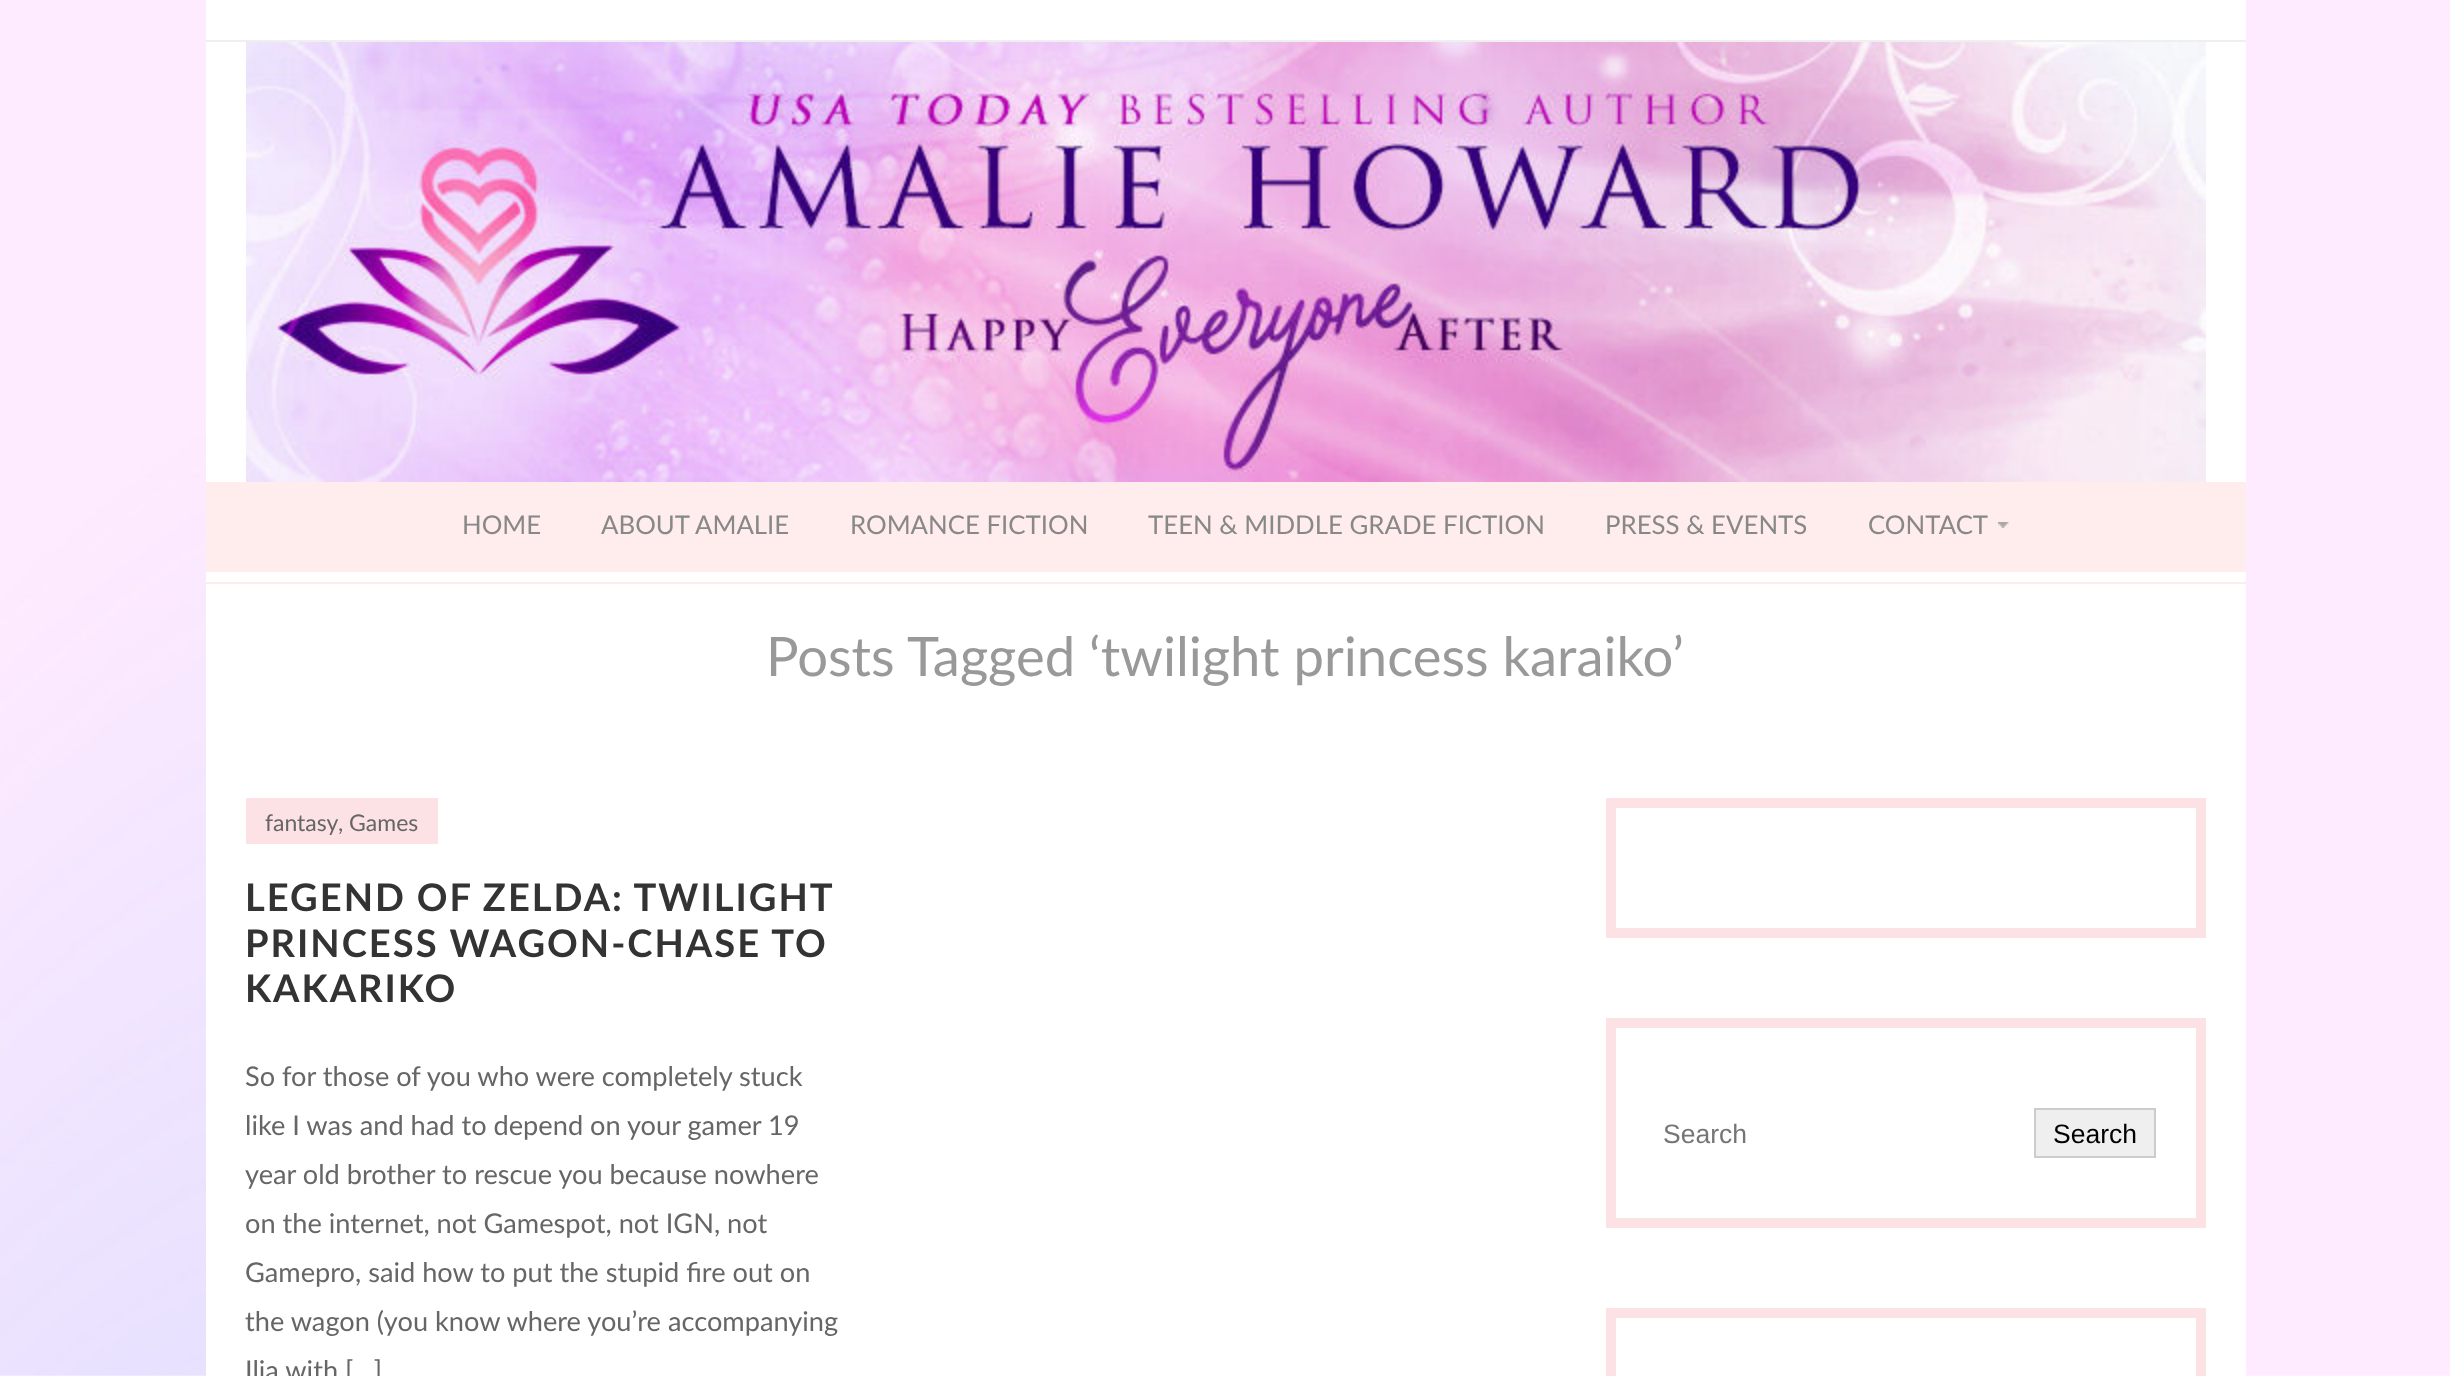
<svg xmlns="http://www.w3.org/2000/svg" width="2450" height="1376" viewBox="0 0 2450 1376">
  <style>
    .t1 { font: 25.8px Lato; fill: #888; }
    .t2 { font: 54.4px Lato; fill: #999; }
    .t3 { font: 23px Lato; fill: #666; }
    .t4 { font: bold 38.1px Lato; letter-spacing: 2px; fill: #333; }
    .t5 { font: 27.2px Lato; fill: #666; }
    .t6 { font: 26.5px Liberation Sans; fill: #757575; }
    .t7 { font: 26.5px Liberation Sans; fill: #000; }
  </style>
  <rect width="100%" height="100%" fill="#fff"/>
  <image x="0" y="0" width="2450" height="1376" href="images/1.png"/>
  <rect x="206" y="0" width="2040" height="1376" fill="#fff"/>
  <rect x="206" y="582" width="2040" height="2" fill="#ffecec"/>
  <rect x="206" y="40" width="2040" height="2" fill="#efefef"/>
  <image x="246" y="42" width="1960" height="440" href="images/2.png"/>
  <rect x="206" y="482" width="2040" height="90" fill="#ffecec"/>
  <text x="462" y="534" class="t1">HOME</text>
  <text x="601" y="534" class="t1">ABOUT AMALIE</text>
  <text x="850" y="534" class="t1">ROMANCE FICTION</text>
  <text x="1148" y="534" class="t1">TEEN &amp; MIDDLE GRADE FICTION</text>
  <text x="1605" y="534" class="t1">PRESS &amp; EVENTS</text>
  <image x="1998" y="522" width="11" height="6" href="images/3.png"/>
  <text x="1868" y="534" class="t1">CONTACT</text>
  <text x="766" y="676" class="t2">Posts Tagged ‘twilight princess karaiko’</text>
  <rect x="246" y="798" width="192" height="46" fill="#fce2e5"/>
  <text x="265" y="831" class="t3">fantasy</text>
  <text x="338" y="831" class="t3">, Games</text>
  <text x="245" y="911" word-spacing="-0.5" class="t4">LEGEND OF ZELDA: TWILIGHT</text>
  <text x="245" y="957" class="t4">PRINCESS WAGON-CHASE TO</text>
  <text x="245" y="1002" class="t4">KAKARIKO</text>
  <text x="245" y="1086" class="t5">So for those of you who were completely stuck</text>
  <text x="245" y="1135" class="t5">like I was and had to depend on your gamer 19</text>
  <text x="245" y="1184" class="t5">year old brother to rescue you because nowhere</text>
  <text x="245" y="1233" class="t5">on the internet, not Gamespot, not IGN, not</text>
  <text x="245" y="1282" class="t5">Gamepro, said how to put the stupid fire out on</text>
  <text x="245" y="1331" class="t5">the wagon (you know where you’re accompanying</text>
  <text x="245" y="1380" class="t5">Ilia with […]</text>
  <rect x="1611" y="803" width="590" height="130" fill="none" stroke="#fce2e5" stroke-width="10"/>
  <rect x="1611" y="1023" width="590" height="200" fill="none" stroke="#fce2e5" stroke-width="10"/>
  <text x="1663" y="1143" class="t6">Search</text>
  <rect x="2035" y="1109" width="120" height="48" fill="#efefef" stroke="#ccc" stroke-width="2"/>
  <text x="2053" y="1143" class="t7">Search</text>
  <rect x="1611" y="1313" width="590" height="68" fill="none" stroke="#fce2e5" stroke-width="10"/>
</svg>
